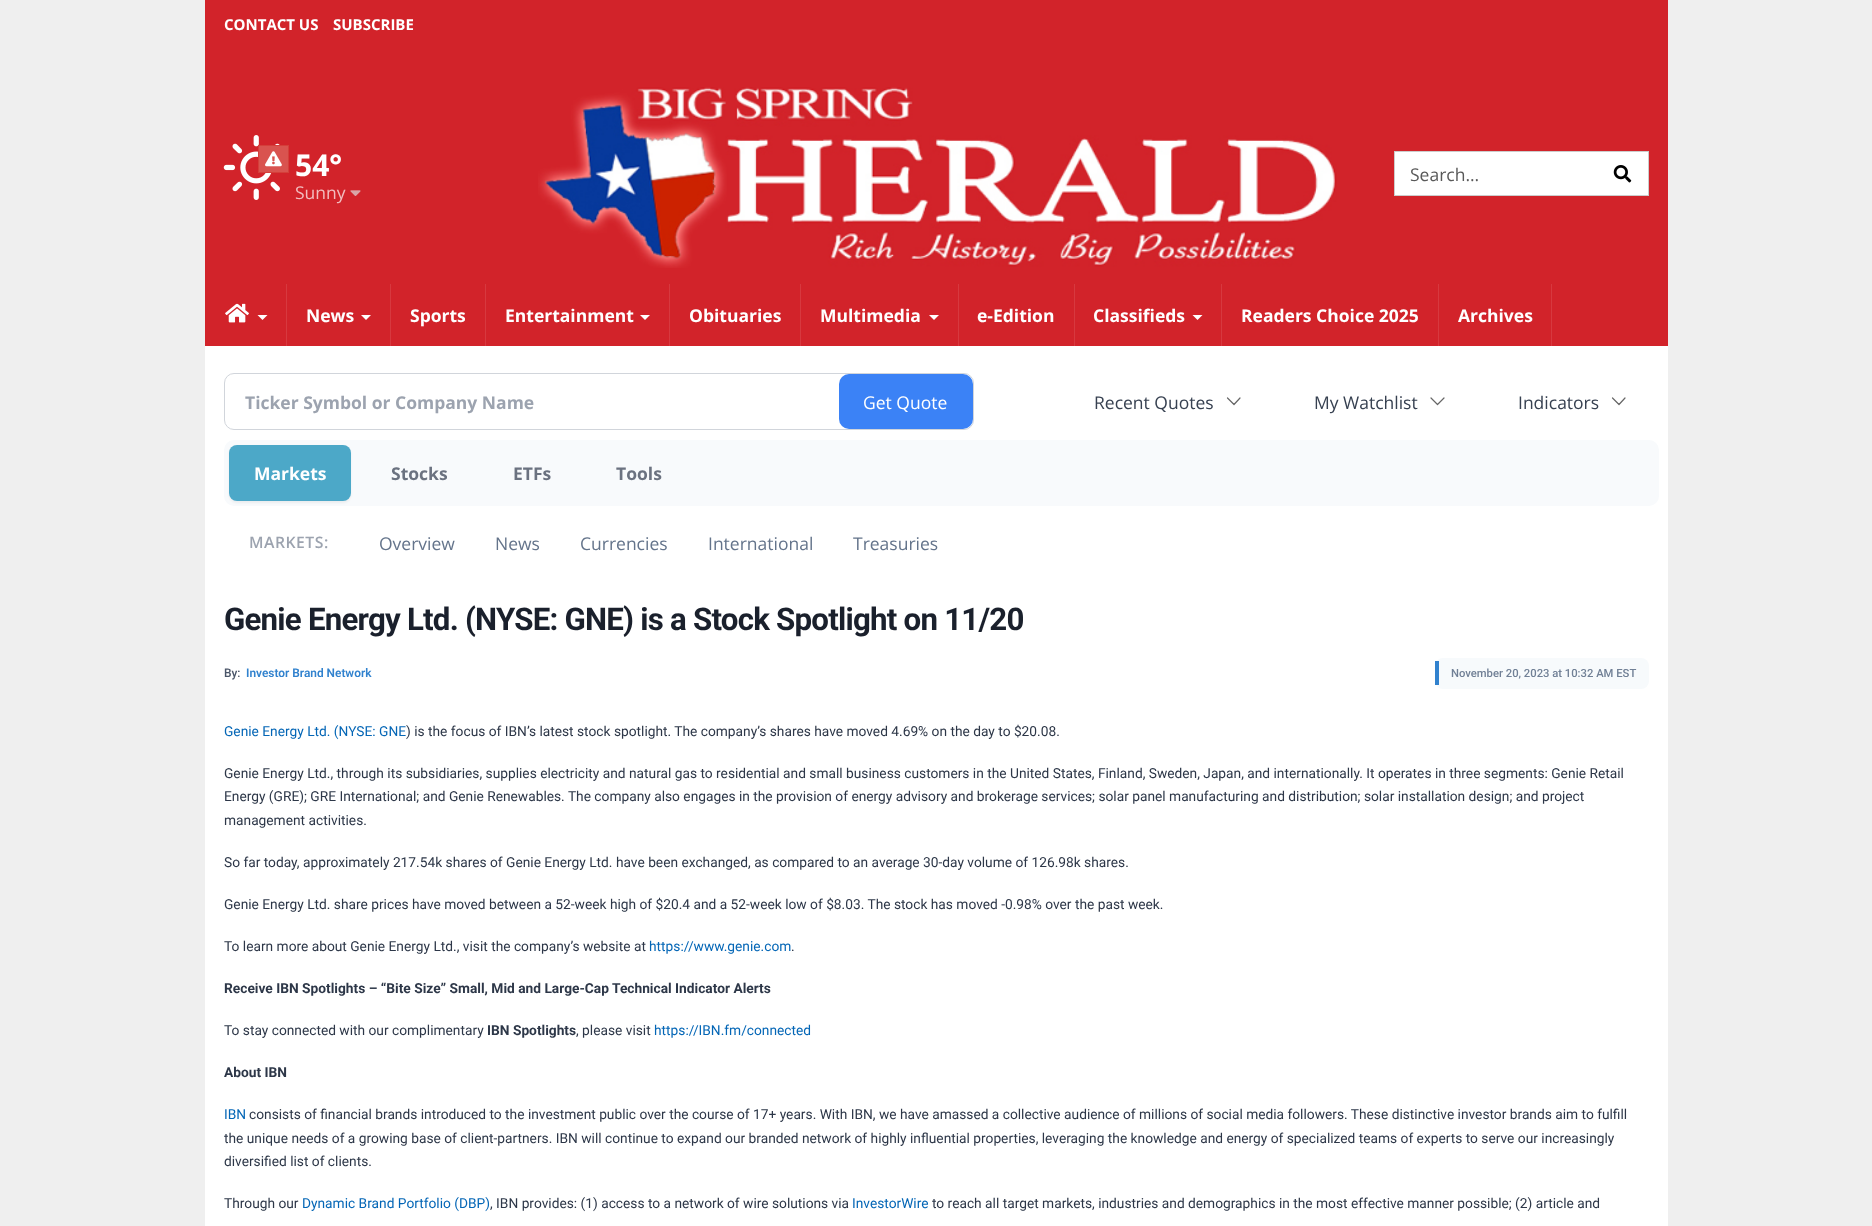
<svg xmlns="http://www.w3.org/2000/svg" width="1872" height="1226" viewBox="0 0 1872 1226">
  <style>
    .t1 { font: bold 15px Open Sans; fill: #fff; }
    .t2 { font: bold 30px Open Sans; fill: #fff; }
    .t3 { font: 17.5px Open Sans; fill: #f2bdbf; }
    .t4 { font: 17.5px Open Sans; fill: #595959; }
    .t5 { font: bold 17.5px Open Sans; fill: #fff; }
    .t6 { font: bold 17.5px Open Sans; fill: #9ca3af; }
    .t7 { font: 17.5px Open Sans; fill: #fff; }
    .t8 { font: 17.5px Open Sans; fill: #374151; }
    .t9 { font: bold 17.5px Open Sans; fill: #6b7280; }
    .t10 { font: 600 15.75px Open Sans; letter-spacing: 0.5px; fill: #9ca3af; }
    .t11 { font: 17.5px Open Sans; fill: #64748b; }
    .t12 { font: bold 31.25px Roboto; letter-spacing: -0.78px; fill: #1a202c; }
    .t13 { font: 500 11.9px Roboto; fill: #4a5568; }
    .t14 { font: 600 11.9px Roboto; fill: #3182ce; }
    .t15 { font: 500 11.25px Roboto; fill: #718096; }
    .t16 { font: 13.75px Roboto; fill: #0466b6; }
    .t17 { font: 13.75px Roboto; fill: #2d3748; }
    .t18 { font: bold 13.75px Roboto; fill: #2d3748; }
  </style>
  <rect width="100%" height="100%" fill="#efefef"/>
  <rect x="205" y="0" width="1463" height="346" fill="#d2232a"/>
  <text x="224" y="30" class="t1">CONTACT US</text>
  <text x="333" y="30" class="t1">SUBSCRIBE</text>
  <image x="223" y="135" width="57" height="65" href="images/1.png"/>
  <rect x="258.5" y="145.5" width="30" height="27" fill="#d9534f" stroke="#d43f3a"/>
  <image x="265" y="151" width="17" height="16" href="images/2.png"/>
  <text x="295" y="176" class="t2">54°</text>
  <text x="295" y="199" class="t3">Sunny</text>
  <image x="350" y="190" width="11" height="6" href="images/3.png"/>
  <image x="538" y="87" width="799" height="181" href="images/4.png"/>
  <rect x="1394.5" y="151.5" width="254" height="44" fill="#fff" stroke="#ccc"/>
  <text x="1410" y="181" class="t4">Search...</text>
  <image x="1613" y="165" width="19" height="18" href="images/5.png"/>
  <rect x="286" y="284" width="1" height="62" fill="#d7393f"/>
  <image x="225" y="303" width="24" height="20" href="images/6.png"/>
  <path d="M257.5 315H267.5L262.5 320Z" fill="#fff"/>
  <rect x="390" y="284" width="1" height="62" fill="#d7393f"/>
  <text x="306" y="322" class="t5">News</text>
  <path d="M361 315H371L366 320Z" fill="#fff"/>
  <rect x="485" y="284" width="1" height="62" fill="#d7393f"/>
  <text x="410" y="322" class="t5">Sports</text>
  <rect x="669" y="284" width="1" height="62" fill="#d7393f"/>
  <text x="505" y="322" class="t5">Entertainment</text>
  <path d="M640 315H650L645 320Z" fill="#fff"/>
  <rect x="800" y="284" width="1" height="62" fill="#d7393f"/>
  <text x="689" y="322" class="t5">Obituaries</text>
  <rect x="958" y="284" width="1" height="62" fill="#d7393f"/>
  <text x="820" y="322" class="t5">Multimedia</text>
  <path d="M929 315H939L934 320Z" fill="#fff"/>
  <rect x="1074" y="284" width="1" height="62" fill="#d7393f"/>
  <text x="977" y="322" class="t5">e-Edition</text>
  <rect x="1221" y="284" width="1" height="62" fill="#d7393f"/>
  <text x="1093" y="322" class="t5">Classifieds</text>
  <path d="M1192.5 315H1202.5L1197.5 320Z" fill="#fff"/>
  <rect x="1438" y="284" width="1" height="62" fill="#d7393f"/>
  <text x="1241" y="322" class="t5">Readers Choice 2025</text>
  <rect x="1551" y="284" width="1" height="62" fill="#d7393f"/>
  <text x="1458" y="322" class="t5">Archives</text>
  <rect x="205" y="346" width="1463" height="880" fill="#fff"/>
  <rect x="224.5" y="373.5" width="749" height="56" rx="9.5" fill="none" stroke="#d1d5db"/>
  <text x="245" y="409" class="t6">Ticker Symbol or Company Name</text>
  <rect x="839" y="374" width="134" height="55" rx="10" fill="#3b82f6"/>
  <text x="863" y="409" class="t7">Get Quote</text>
  <text x="1094" y="409" class="t8">Recent Quotes</text>
  <path d="M1240 398L1234 404.5L1227.5 398" fill="none" stroke="#666" stroke-width="1.2" stroke-linecap="round" stroke-linejoin="round"/>
  <text x="1314" y="409" class="t8">My Watchlist</text>
  <path d="M1444 398L1437.5 404.5L1431 398" fill="none" stroke="#666" stroke-width="1.2" stroke-linecap="round" stroke-linejoin="round"/>
  <text x="1518" y="409" class="t8">Indicators</text>
  <path d="M1625 398L1619 404.5L1612.5 398" fill="none" stroke="#666" stroke-width="1.2" stroke-linecap="round" stroke-linejoin="round"/>
  <rect x="224" y="440" width="1435" height="66" rx="10" fill="#f8fafc"/>
  <rect x="229" y="446" width="122" height="57" rx="8" fill="#0000000d" filter="blur(1px)"/>
  <rect x="229" y="445" width="122" height="56" rx="8" fill="#4ca8c8"/>
  <text x="254" y="480" class="t5">Markets</text>
  <text x="391" y="480" class="t9">Stocks</text>
  <text x="513" y="480" class="t9">ETFs</text>
  <text x="616" y="480" class="t9">Tools</text>
  <text x="249" y="548" class="t10">MARKETS:</text>
  <text x="379" y="550" class="t11">Overview</text>
  <text x="495" y="550" class="t11">News</text>
  <text x="580" y="550" class="t11">Currencies</text>
  <text x="708" y="550" class="t11">International</text>
  <text x="853" y="550" class="t11">Treasuries</text>
  <text x="224" y="630" class="t12">Genie Energy Ltd. (NYSE: GNE) is a Stock Spotlight on 11/20</text>
  <text x="224" y="677" class="t13">By:</text>
  <text x="246" y="677" class="t14">Investor Brand Network</text>
  <rect x="1435" y="658" width="214" height="31" rx="8" fill="#f7fafc"/>
  <rect x="1435" y="661" width="4" height="24" fill="#3182ce"/>
  <text x="1451" y="677" class="t15">November 20, 2023 at 10:32 AM EST</text>
  <text x="224" y="736" class="t16">Genie Energy Ltd. (NYSE: GNE</text>
  <text x="406" y="736" class="t17">) is the focus of IBN’s latest stock spotlight. The company’s shares have moved 4.69% on the day to $20.08.</text>
  <text x="224" y="778" class="t17">Genie Energy Ltd., through its subsidiaries, supplies electricity and natural gas to residential and small business customers in the United States, Finland, Sweden, Japan, and internationally. It operates in three segments: Genie Retail</text>
  <text x="224" y="801" class="t17">Energy (GRE); GRE International; and Genie Renewables. The company also engages in the provision of energy advisory and brokerage services; solar panel manufacturing and distribution; solar installation design; and project</text>
  <text x="224" y="825" class="t17">management activities.</text>
  <text x="224" y="867" class="t17">So far today, approximately 217.54k shares of Genie Energy Ltd. have been exchanged, as compared to an average 30-day volume of 126.98k shares.</text>
  <text x="224" y="909" class="t17">Genie Energy Ltd. share prices have moved between a 52-week high of $20.4 and a 52-week low of $8.03. The stock has moved -0.98% over the past week.</text>
  <text x="224" y="951" class="t17">To learn more about Genie Energy Ltd., visit the company’s website at</text>
  <text x="649" y="951" class="t16">https://www.genie.com</text>
  <text x="791" y="951" class="t17">.</text>
  <text x="224" y="993" class="t18">Receive IBN Spotlights – “Bite Size” Small, Mid and Large-Cap Technical Indicator Alerts</text>
  <text x="224" y="1035" class="t17">To stay connected with our complimentary</text>
  <text x="487" y="1035" class="t18">IBN Spotlights</text>
  <text x="576" y="1035" class="t17">, please visit</text>
  <text x="654" y="1035" class="t16">https://IBN.fm/connected</text>
  <text x="224" y="1077" class="t18">About IBN</text>
  <text x="224" y="1119" class="t16">IBN</text>
  <text x="249" y="1119" class="t17">consists of financial brands introduced to the investment public over the course of 17+ years. With IBN, we have amassed a collective audience of millions of social media followers. These distinctive investor brands aim to fulfill</text>
  <text x="224" y="1143" class="t17">the unique needs of a growing base of client-partners. IBN will continue to expand our branded network of highly influential properties, leveraging the knowledge and energy of specialized teams of experts to serve our increasingly</text>
  <text x="224" y="1166" class="t17">diversified list of clients.</text>
  <text x="224" y="1208" class="t17">Through our</text>
  <text x="302" y="1208" class="t16">Dynamic Brand Portfolio (DBP)</text>
  <text x="490" y="1208" class="t17">, IBN provides: (1) access to a network of wire solutions via</text>
  <text x="852" y="1208" class="t16">InvestorWire</text>
  <text x="932" y="1208" class="t17">to reach all target markets, industries and demographics in the most effective manner possible; (2) article and</text>
</svg>
